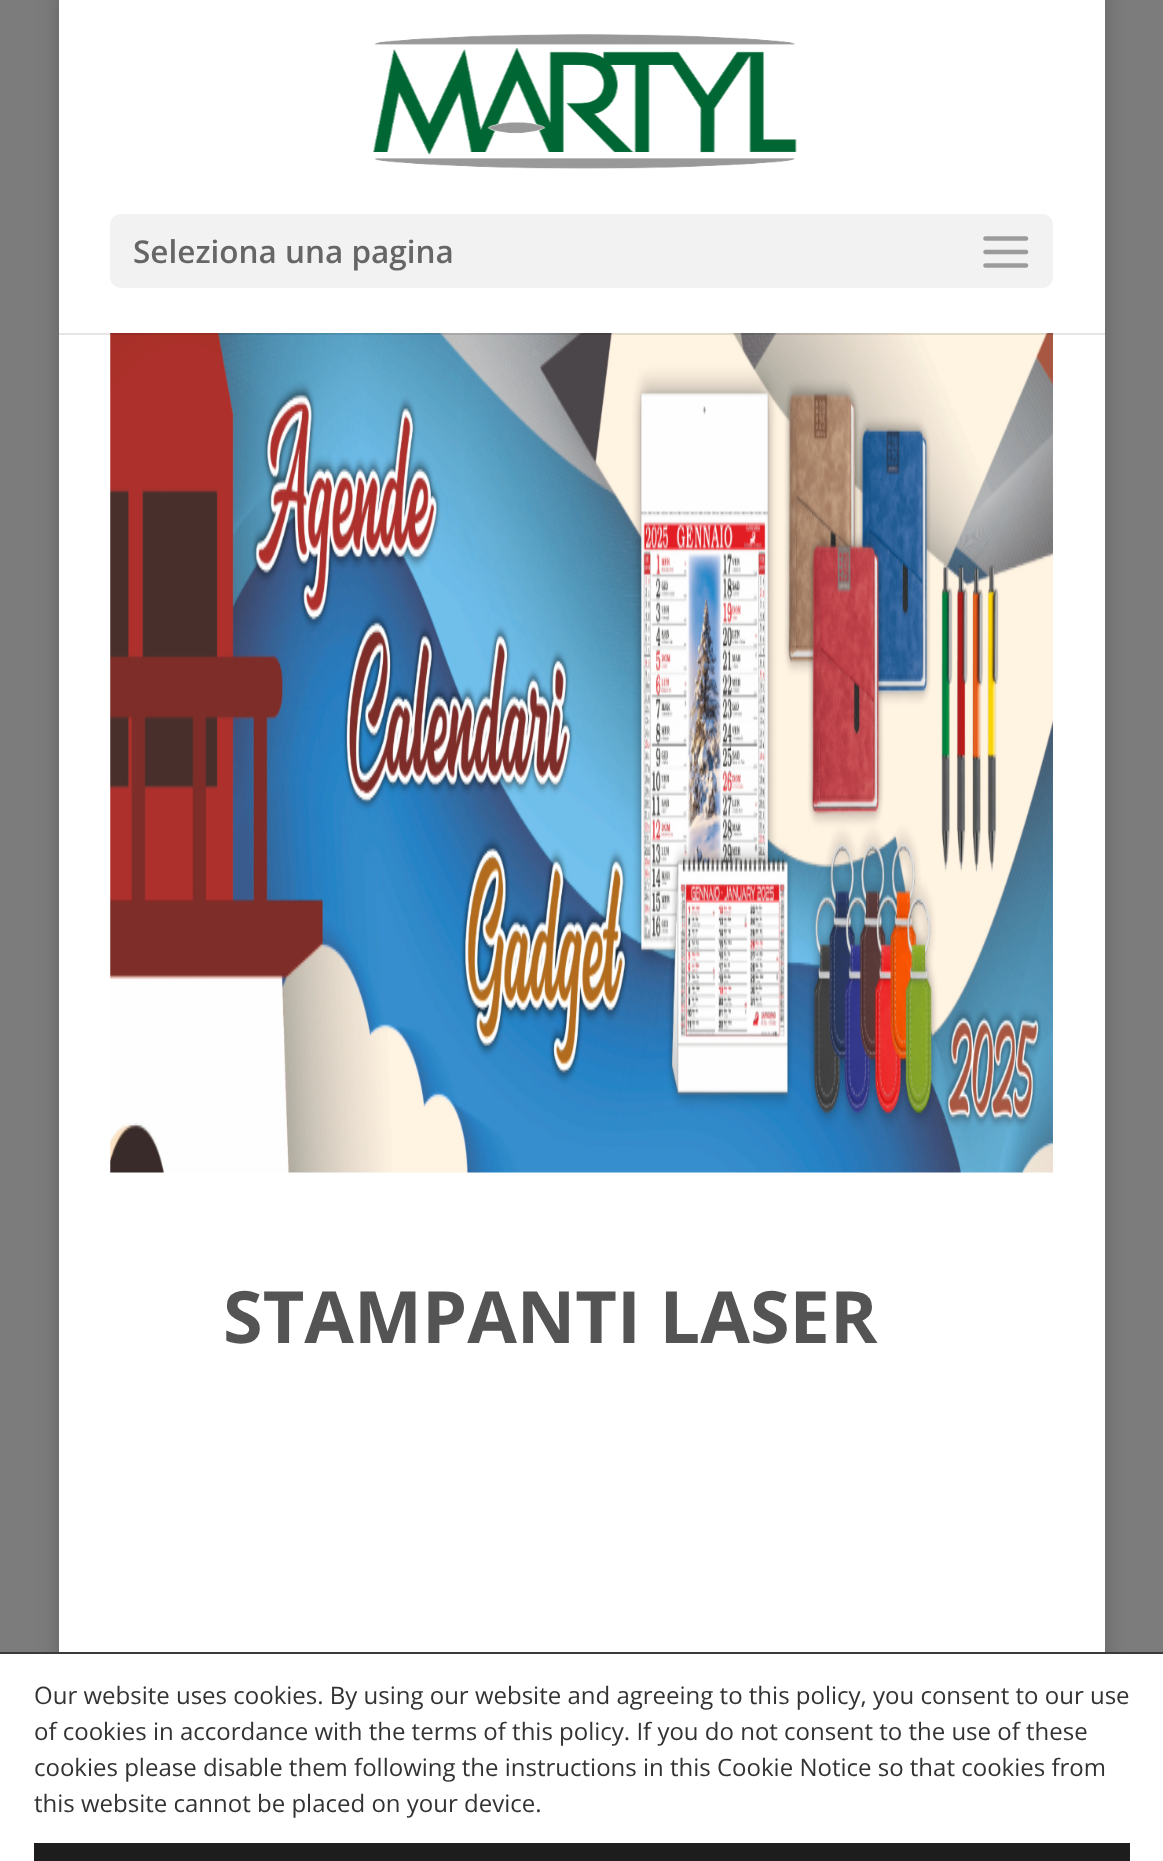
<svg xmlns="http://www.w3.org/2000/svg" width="1163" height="1861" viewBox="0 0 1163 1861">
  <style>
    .t1 { font: 600 31.5px Open Sans; fill: #666; }
    .t2 { font: bold 72px Open Sans; fill: #545454; }
    .t3 { font: 24px Open Sans; fill: #333; }
  </style>
  <rect width="100%" height="100%" fill="#7c7c7c"/>
  <rect x="59" y="-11" width="1046" height="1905" fill="#00000033" filter="blur(11px)"/>
  <rect x="59" y="0" width="1046" height="1652" fill="#fff"/>
  <image x="110" y="333" width="943" height="840" href="images/3.png"/>
  <path d="M59 333V335H1105V-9V333Z" fill="#0000001a"/>
  <image x="373" y="34" width="424" height="135" href="images/1.png"/>
  <rect x="110" y="214" width="943" height="74" rx="11" fill="#f2f2f2"/>
  <text x="133" y="263" class="t1">Seleziona una pagina</text>
  <image x="983" y="236" width="46" height="32" href="images/2.png"/>
  <text x="223" y="1343" class="t2">STAMPANTI LASER</text>
  <rect x="0" y="1654" width="1163" height="207" fill="#fff"/>
  <rect x="0" y="1652" width="1163" height="2" fill="#3b3939"/>
  <text x="34" y="1704" class="t3">Our website uses cookies. By using our website and agreeing to this policy, you consent to our use</text>
  <text x="34" y="1740" class="t3">of cookies in accordance with the terms of this policy. If you do not consent to the use of these</text>
  <text x="34" y="1776" class="t3">cookies please disable them following the instructions in this Cookie Notice so that cookies from</text>
  <text x="34" y="1812" class="t3">this website cannot be placed on your device.</text>
  <rect x="34" y="1843" width="1096" height="18" fill="#1d1d1d"/>
</svg>
